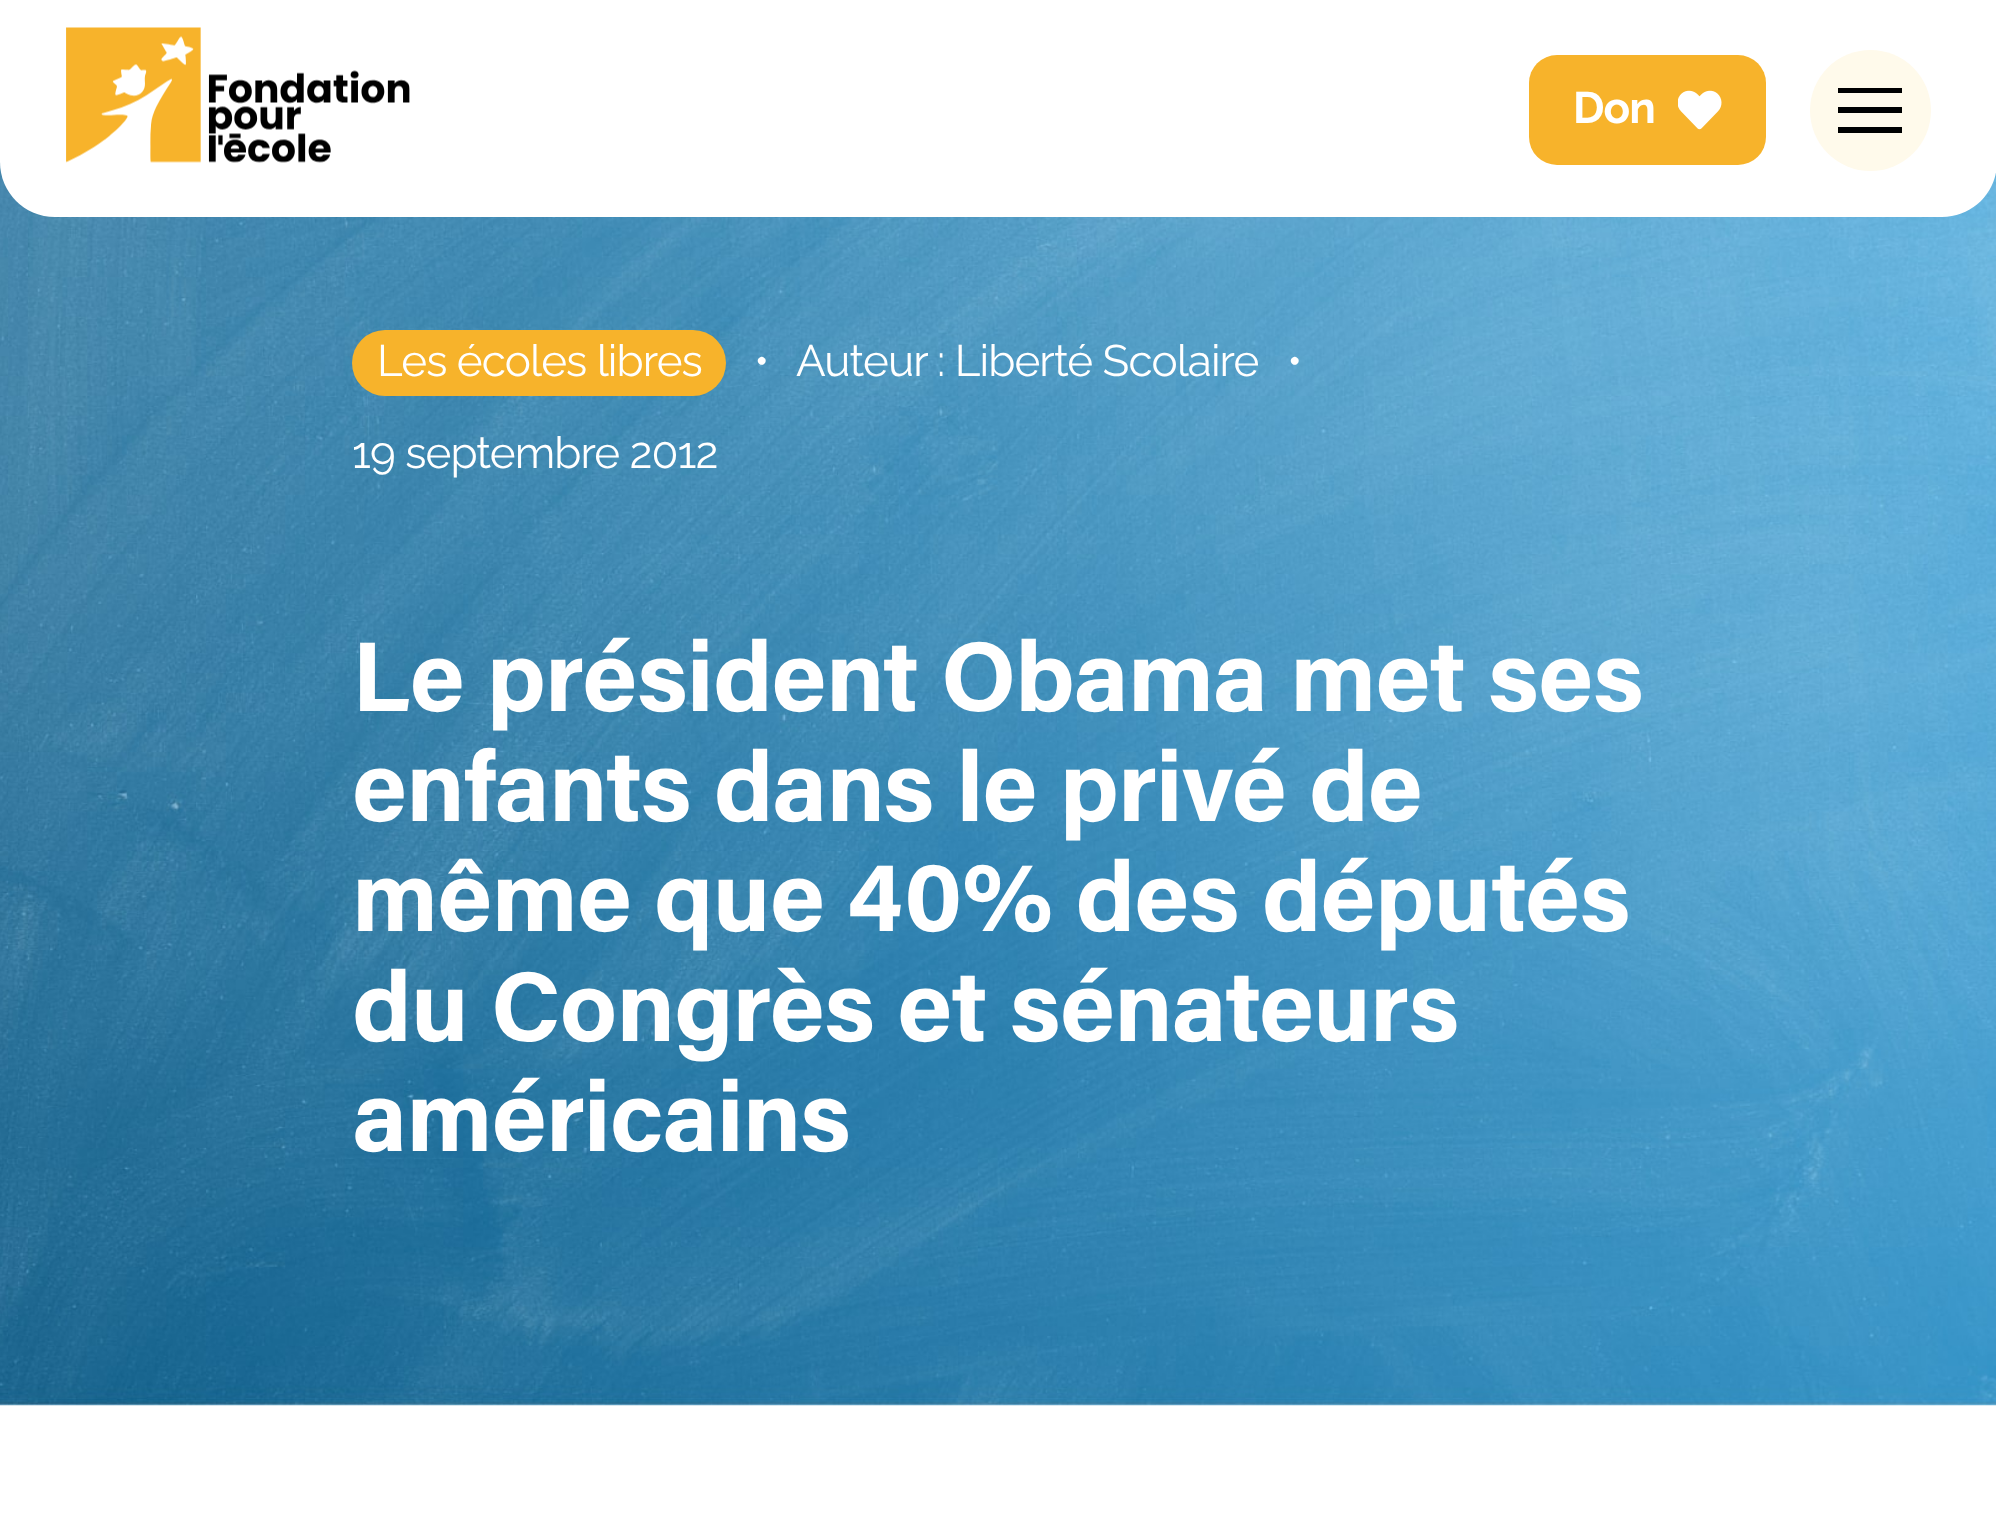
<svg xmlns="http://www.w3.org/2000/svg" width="1996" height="1528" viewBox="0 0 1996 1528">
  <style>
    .t1 { font: bold 44px Raleway; letter-spacing: -0.9px; fill: #fff; }
    .t2 { font: 44px Raleway; letter-spacing: -0.9px; fill: #fff; }
    .t3 { font: bold 99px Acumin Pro; letter-spacing: -0.9px; fill: #fff; }
  </style>
  <rect width="100%" height="100%" fill="#fff"/>
  <image x="0" y="162" width="1996" height="1244" href="images/3.png"/>
  <path d="M0 0H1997V162C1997 192.5 1972.5 217 1942 217H55C24.5 217 0 192.5 0 162Z" fill="#fff"/>
  <image x="66" y="27" width="344" height="136" href="images/1.png"/>
  <rect x="1529" y="55" width="237" height="110" rx="28" fill="#f7b32b"/>
  <text x="1573" y="123" class="t1">Don</text>
  <image x="1678" y="90" width="44" height="40" href="images/2.png"/>
  <circle cx="1870.5" cy="110.5" r="60.5" fill="#fffaeb"/>
  <rect x="1838" y="88" width="64" height="5" fill="#000"/>
  <rect x="1838" y="107" width="64" height="6" fill="#000"/>
  <rect x="1838" y="127" width="64" height="6" fill="#000"/>
  <rect x="352" y="330" width="374" height="66" rx="33" fill="#f7b32b"/>
  <text x="377" y="376" class="t2">Les écoles libres</text>
  <text x="754" y="376" class="t2">•</text>
  <text x="796" y="376" class="t2">Auteur : Liberté Scolaire</text>
  <text x="1287" y="376" class="t2">•</text>
  <text x="352" y="468" class="t2">19 septembre 2012</text>
  <text x="352" y="711" class="t3">Le président Obama met ses</text>
  <text x="352" y="821" class="t3">enfants dans le privé de</text>
  <text x="352" y="931" class="t3">même que 40% des députés</text>
  <text x="352" y="1041" class="t3">du Congrès et sénateurs</text>
  <text x="352" y="1151" class="t3">américains</text>
</svg>
